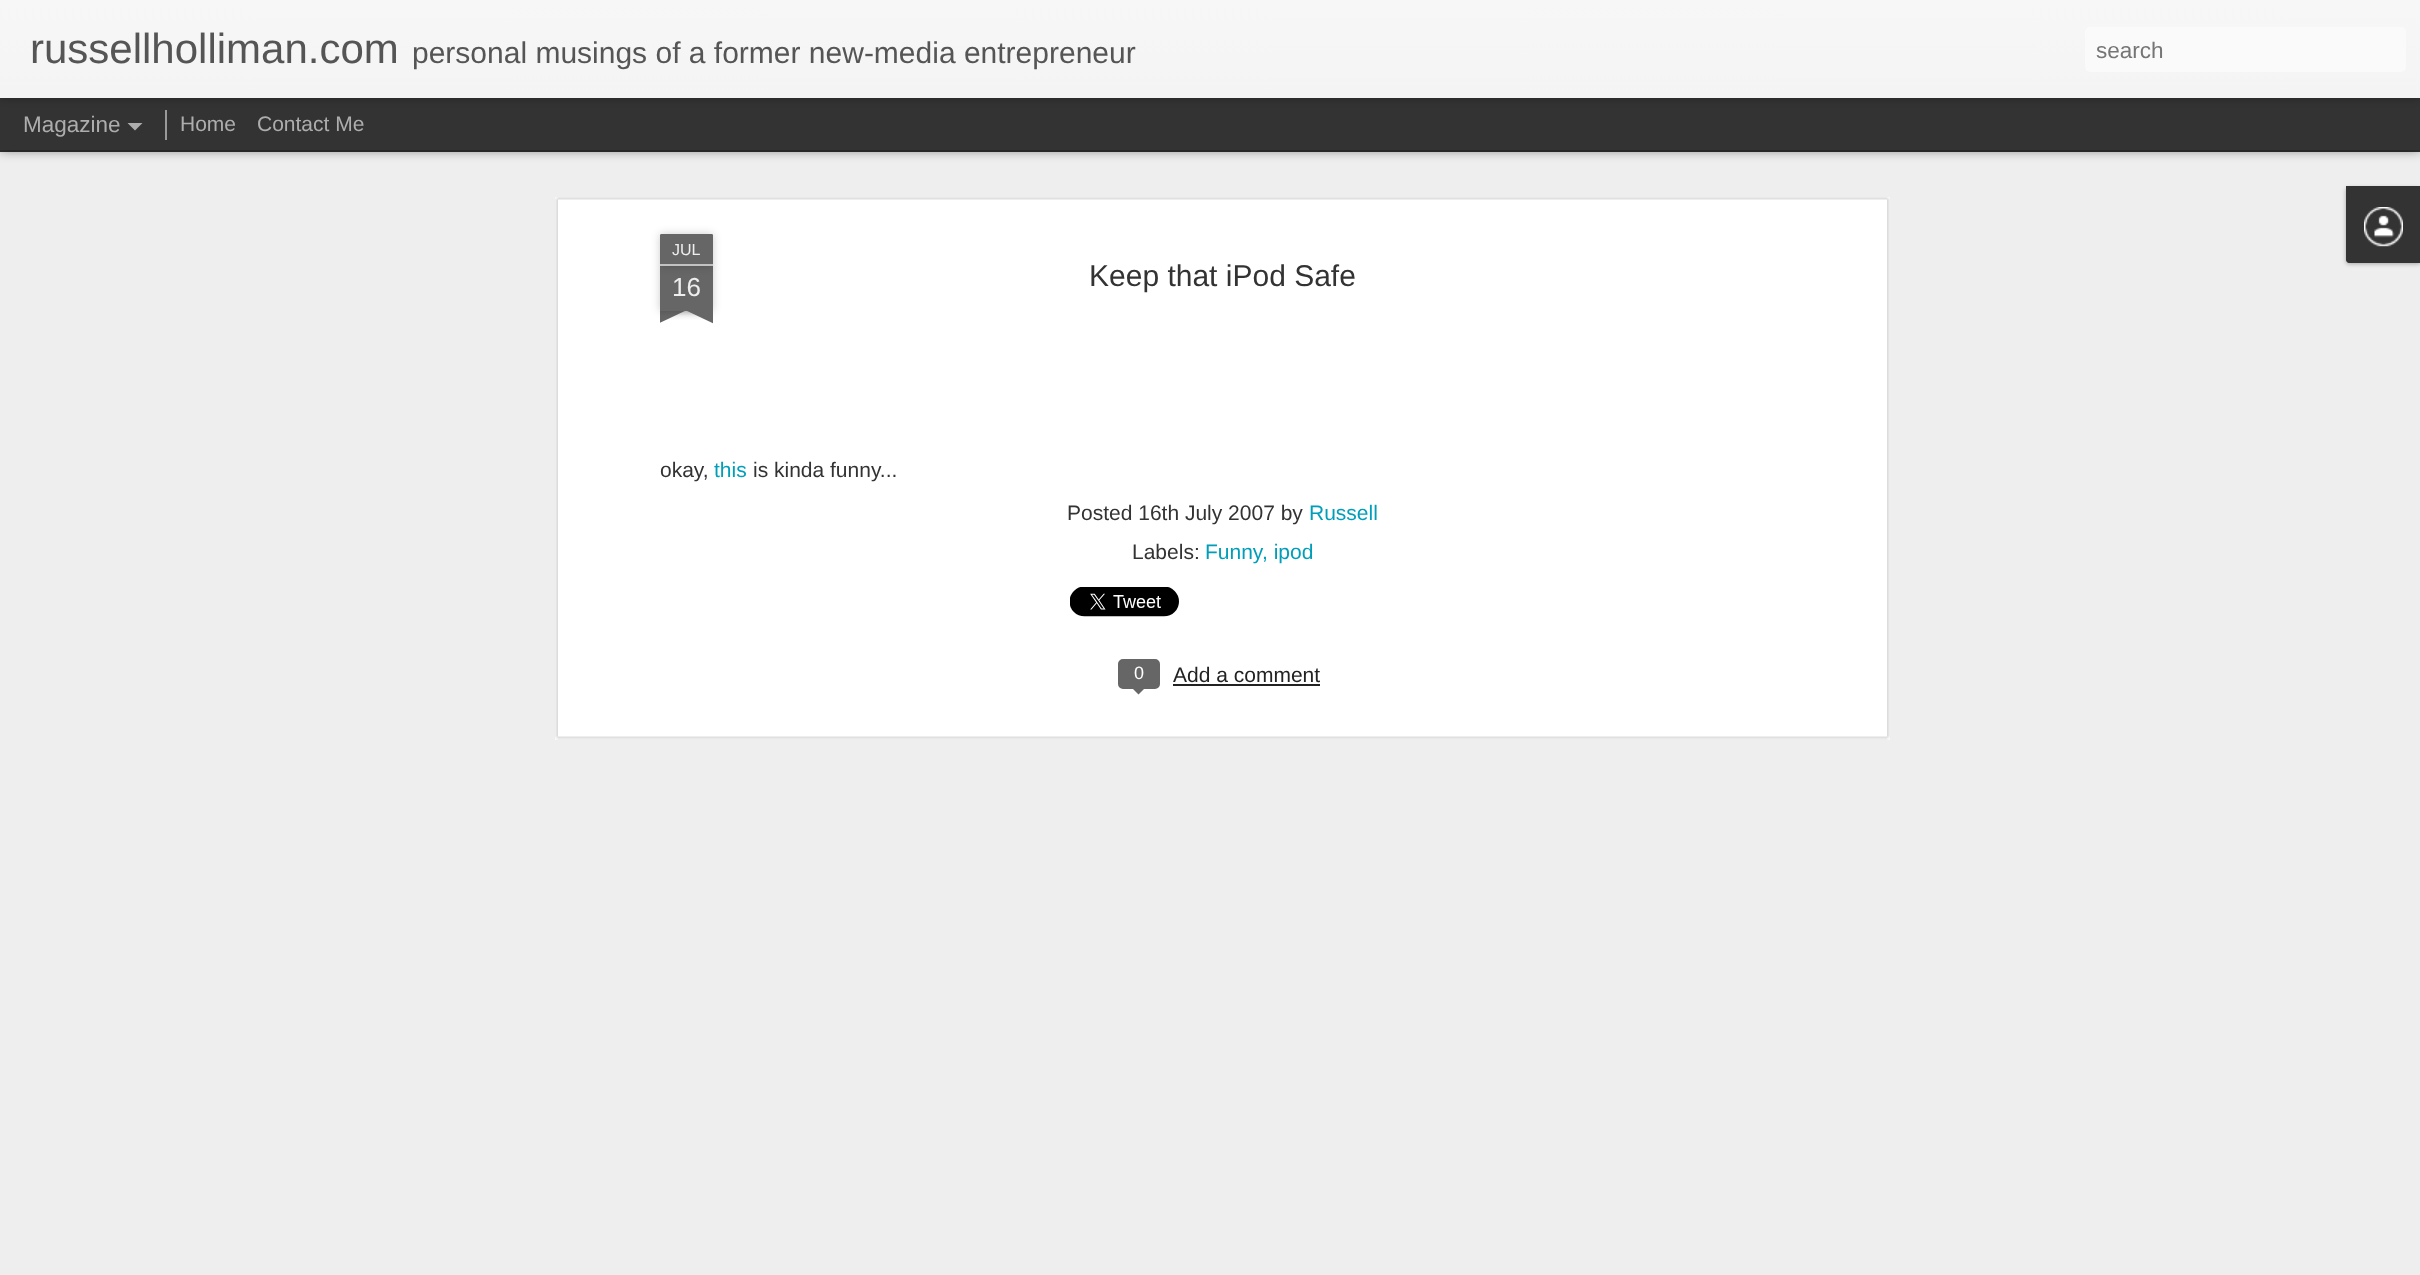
<svg xmlns="http://www.w3.org/2000/svg" width="2420" height="1275" viewBox="0 0 2420 1275">
  <style>
    .t1 { font: 42px Liberation Sans; fill: #555; }
    .t2 { font: 30px Liberation Sans; fill: #555; }
    .t3 { font: 22.5px Liberation Sans; fill: #757575; }
    .t4 { font: 22.5px Liberation Sans; fill: #adadad; }
    .t5 { font: 21px Liberation Sans; fill: #adadad; }
    .t6 { font: 16px Liberation Sans; fill: #eee; }
    .t7 { font: 26px Liberation Sans; fill: #eee; }
    .t8 { font: 30px Liberation Sans; fill: #333; }
    .t9 { font: 21px Liberation Sans; fill: #333; }
    .t10 { font: 21px Liberation Sans; fill: #009eb8; }
    .t11 { font: 18px Liberation Sans; fill: #fff; }
    .t12 { font: 21px Liberation Sans; fill: #222; }
  </style>
  <defs>
    <linearGradient id="g1" gradientUnits="userSpaceOnUse" x1="0" y1="0" x2="0" y2="98"><stop offset="0" stop-color="#f7f7f7"/><stop offset="1" stop-color="#f4f4f4"/></linearGradient>
    <clipPath id="clip1"><rect x="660" y="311" width="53" height="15"/></clipPath>
    <clipPath id="clip2"><rect x="660" y="311" width="53" height="15"/></clipPath>
  </defs>
  <rect width="100%" height="100%" fill="#333"/>
  <rect x="0" y="152" width="2420" height="1123" fill="#eee"/>
  <rect x="0" y="98" width="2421" height="52" fill="#00000080" filter="blur(6px)"/>
  <rect x="0" y="98" width="2420" height="52" fill="#333"/>
  <rect x="165" y="110" width="2" height="30" fill="#999"/>
  <rect x="0" y="0" width="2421" height="98" fill="#0000004d" filter="blur(4px)"/>
  <rect x="0" y="0" width="2420" height="98" fill="url(#g1)"/>
  <text x="30" y="63" class="t1">russellholliman.com</text>
  <text x="412" y="63" class="t2">personal musings of a former new-media entrepreneur</text>
  <rect x="2085" y="27" width="321" height="45" rx="5" fill="#fafafa"/>
  <text x="2096" y="58" class="t3">search</text>
  <text x="23" y="132" class="t4">Magazine</text>
  <path d="M127.5 123H142.5L135 130.5Z" fill="#adadad"/>
  <text x="180" y="131" class="t5">Home</text>
  <text x="257" y="131" class="t5">Contact Me</text>
  <rect x="2346" y="188" width="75" height="76" rx="3" fill="#0000004d" filter="blur(2px)"/>
  <path d="M2346 186H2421V263H2349C2347.5 263 2346 261.5 2346 260Z" fill="#333"/>
  <image x="2364" y="207" width="39" height="40" href="images/1.png"/>
  <rect x="555" y="197" width="1335" height="543" fill="#fff"/>
  <image x="555" y="197" width="1335" height="543" href="images/2.png"/>
  <rect x="660" y="266" width="53" height="45" fill="#00000033" filter="blur(4px)"/>
  <rect x="660" y="266" width="53" height="45" fill="#666"/>
  <rect x="660" y="234" width="53" height="32" rx="1.5" fill="#00000033" filter="blur(4px)"/>
  <path d="M661.5 234H711.5C712.5 234 713 234.5 713 235.5V266H660V235.5C660 234.5 660.5 234 661.5 234Z" fill="#666"/>
  <rect x="660" y="264" width="53" height="2" fill="#c2c2c2"/>
  <text x="672" y="255" class="t6">JUL</text>
  <text x="672" y="296" class="t7">16</text>
  <g clip-path="url(#clip1)">
    <rect x="647" y="296" width="75" height="15" fill="#00000033" filter="blur(4px)"/>
  </g>
  <g clip-path="url(#clip2)">
    <path d="M647 312L715 280L721 294L653 326Z" fill="#666"/>
  </g>
  <g clip-path="url(#clip1)">
    <rect x="651" y="296" width="75" height="15" fill="#00000033" filter="blur(4px)"/>
  </g>
  <g clip-path="url(#clip2)">
    <path d="M658 280L726 312L719 326L651 294Z" fill="#666"/>
  </g>
  <text x="1089" y="286" class="t8">Keep that iPod Safe</text>
  <text x="660" y="477" class="t9">okay,</text>
  <text x="714" y="477" class="t10">this</text>
  <text x="753" y="477" class="t9">is kinda funny...</text>
  <text x="1067" y="520" class="t9">Posted 16th July 2007 by</text>
  <text x="1309" y="520" class="t10">Russell</text>
  <text x="1132" y="559" class="t9">Labels:</text>
  <text x="1205" y="559" class="t10">Funny</text>
  <text x="1262" y="559" class="t10">, ipod</text>
  <image x="1070" y="587" width="109" height="30" href="images/3.png"/>
  <rect x="1119" y="660" width="40" height="28" rx="4" fill="#666" stroke="#666" stroke-width="2"/>
  <text x="1134" y="679" class="t11">0</text>
  <path d="M1131 687H1146L1138.5 694.5Z" fill="#666"/>
  <text x="1173" y="682" class="t12">Add a comment</text>
  <rect x="1173" y="684" width="147" height="2" fill="#222"/>
</svg>
